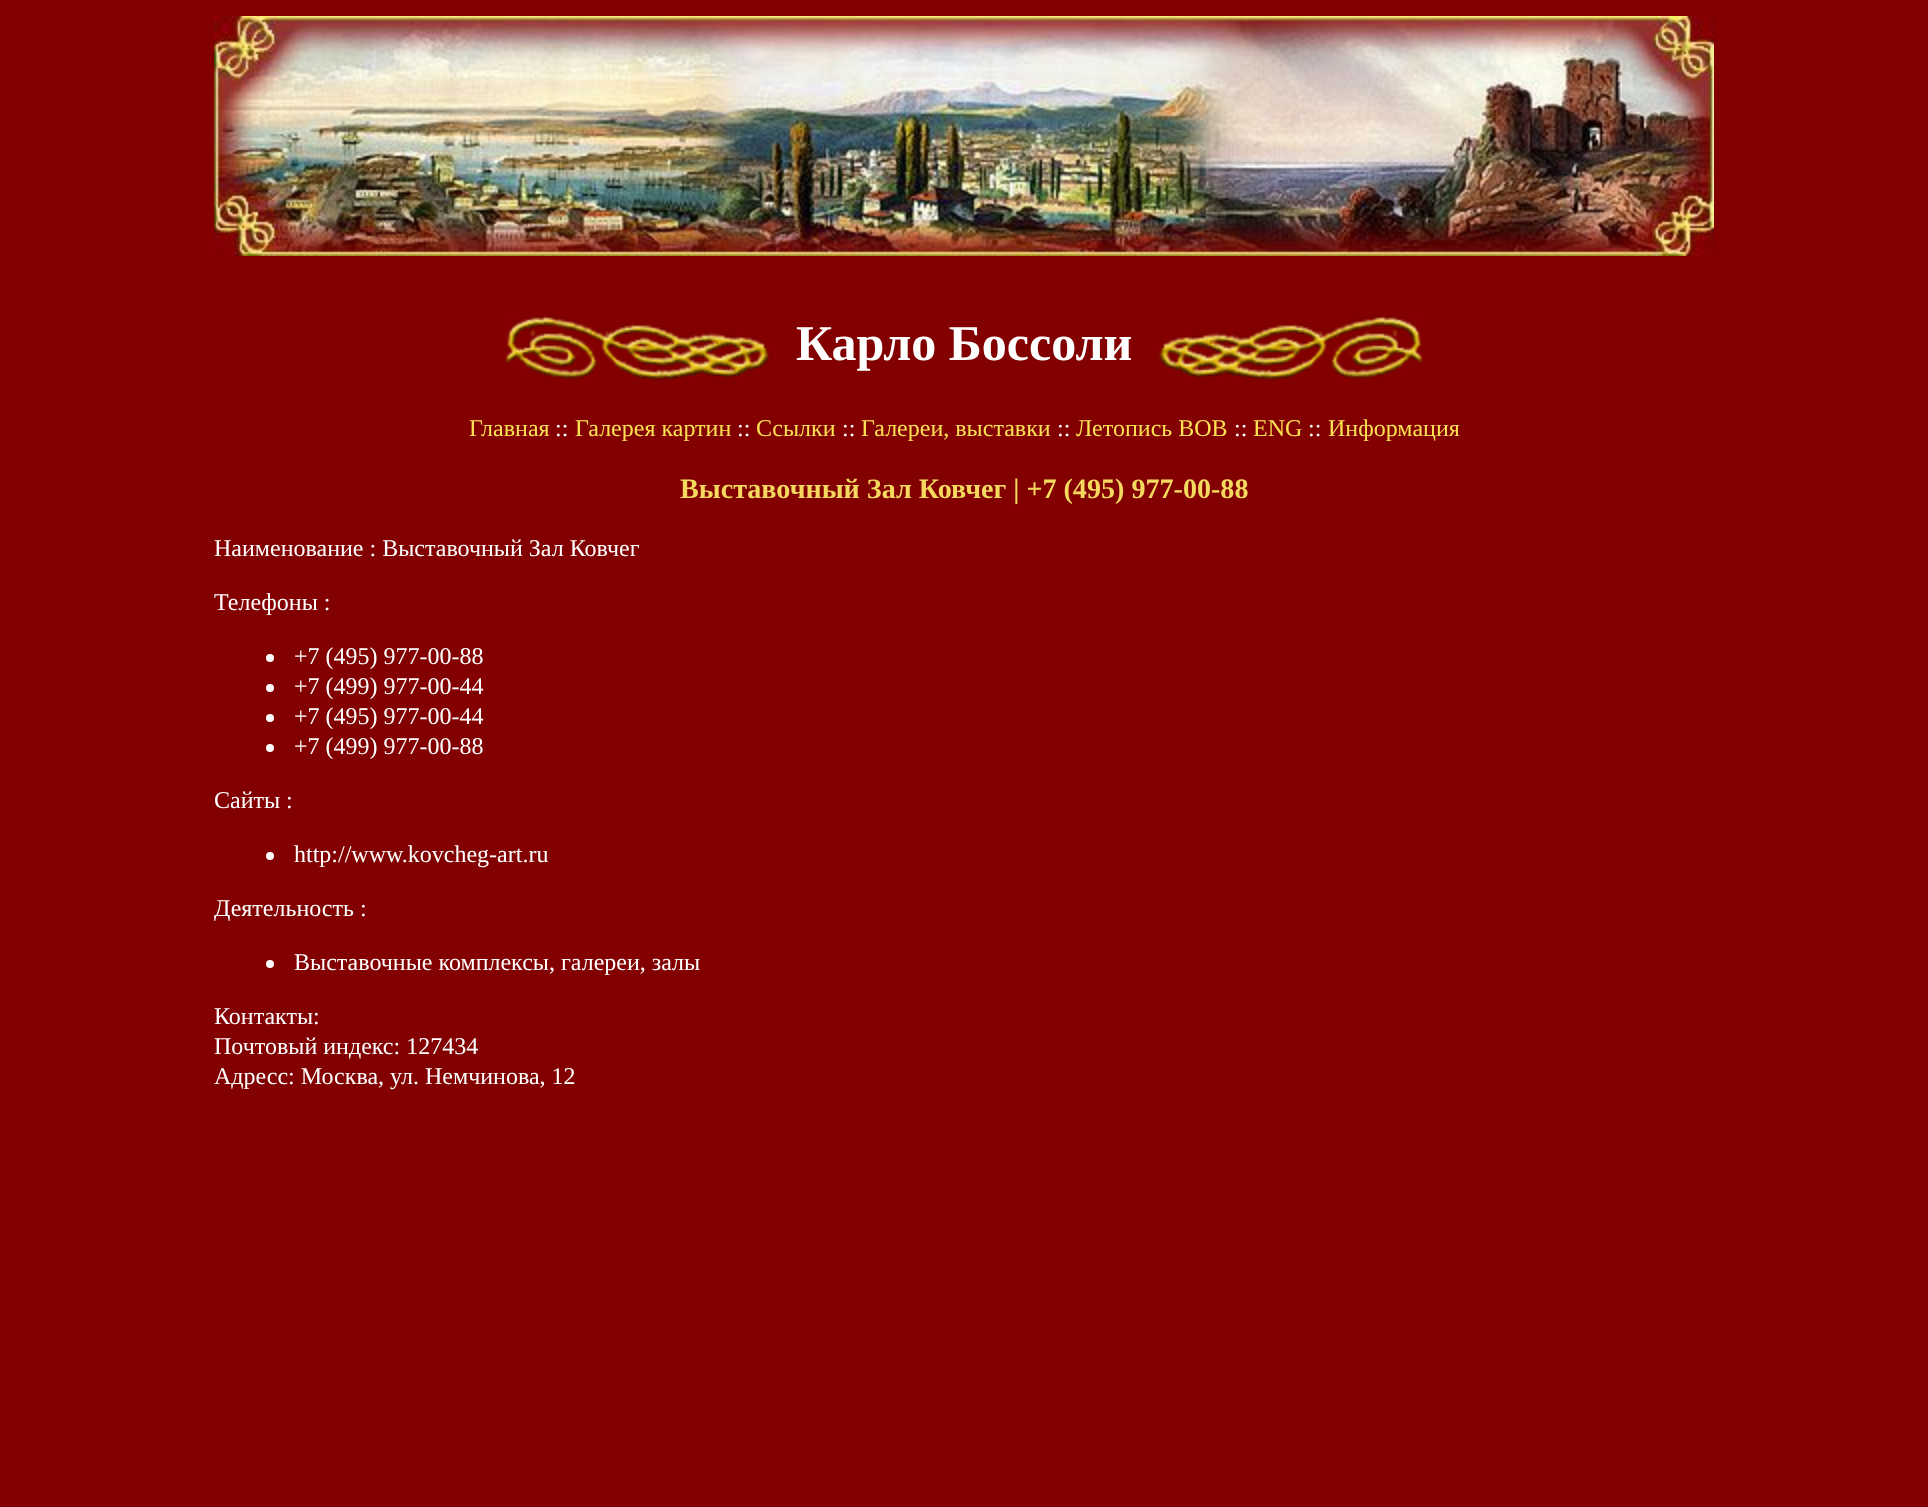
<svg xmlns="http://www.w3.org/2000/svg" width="1928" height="1507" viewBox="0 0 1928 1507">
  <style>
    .t1 { font: bold 50px Liberation Serif; fill: #fff; }
    .t2 { font: 24px Liberation Serif; fill: #fce253; }
    .t3 { font: 24px Liberation Serif; fill: #fff; }
    .t4 { font: bold 28.1px Liberation Serif; fill: #f4d95e; }
  </style>
  <rect width="100%" height="100%" fill="#820000"/>
  <image x="214" y="16" width="1500" height="240" href="images/1.png"/>
  <image x="506" y="316" width="264" height="65" href="images/2.png"/>
  <text x="796" y="360" class="t1">Карло Боссоли</text>
  <image x="1159" y="316" width="263" height="65" href="images/3.png"/>
  <text x="469" y="436" class="t2">Главная</text>
  <text x="555" y="436" class="t3">::</text>
  <text x="575" y="436" class="t2">Галерея картин</text>
  <text x="737" y="436" class="t3">::</text>
  <text x="756" y="436" class="t2">Ссылки</text>
  <text x="842" y="436" class="t3">::</text>
  <text x="861" y="436" class="t2">Галереи, выставки</text>
  <text x="1057" y="436" class="t3">::</text>
  <text x="1076" y="436" class="t2">Летопись ВОВ</text>
  <text x="1234" y="436" class="t3">::</text>
  <text x="1253" y="436" class="t2">ENG</text>
  <text x="1308" y="436" class="t3">::</text>
  <text x="1328" y="436" class="t2">Информация</text>
  <text x="680" y="498" class="t4">Выставочный Зал Ковчег | +7 (495) 977-00-88</text>
  <text x="214" y="556" class="t3">Наименование : Выставочный Зал Ковчег</text>
  <text x="214" y="610" class="t3">Телефоны :</text>
  <circle cx="270" cy="658" r="4" fill="#fff"/>
  <text x="294" y="664" class="t3">+7 (495) 977-00-88</text>
  <circle cx="270" cy="688" r="4" fill="#fff"/>
  <text x="294" y="694" class="t3">+7 (499) 977-00-44</text>
  <circle cx="270" cy="718" r="4" fill="#fff"/>
  <text x="294" y="724" class="t3">+7 (495) 977-00-44</text>
  <circle cx="270" cy="748" r="4" fill="#fff"/>
  <text x="294" y="754" class="t3">+7 (499) 977-00-88</text>
  <text x="214" y="808" class="t3">Сайты :</text>
  <circle cx="270" cy="856" r="4" fill="#fff"/>
  <text x="294" y="862" class="t3">http://www.kovcheg-art.ru</text>
  <text x="214" y="916" class="t3">Деятельность :</text>
  <circle cx="270" cy="964" r="4" fill="#fff"/>
  <text x="294" y="970" class="t3">Выставочные комплексы, галереи, залы</text>
  <text x="214" y="1024" class="t3">Контакты:</text>
  <text x="214" y="1054" class="t3">Почтовый индекс: 127434</text>
  <text x="214" y="1084" class="t3">Адресс: Москва, ул. Немчинова, 12</text>
</svg>
